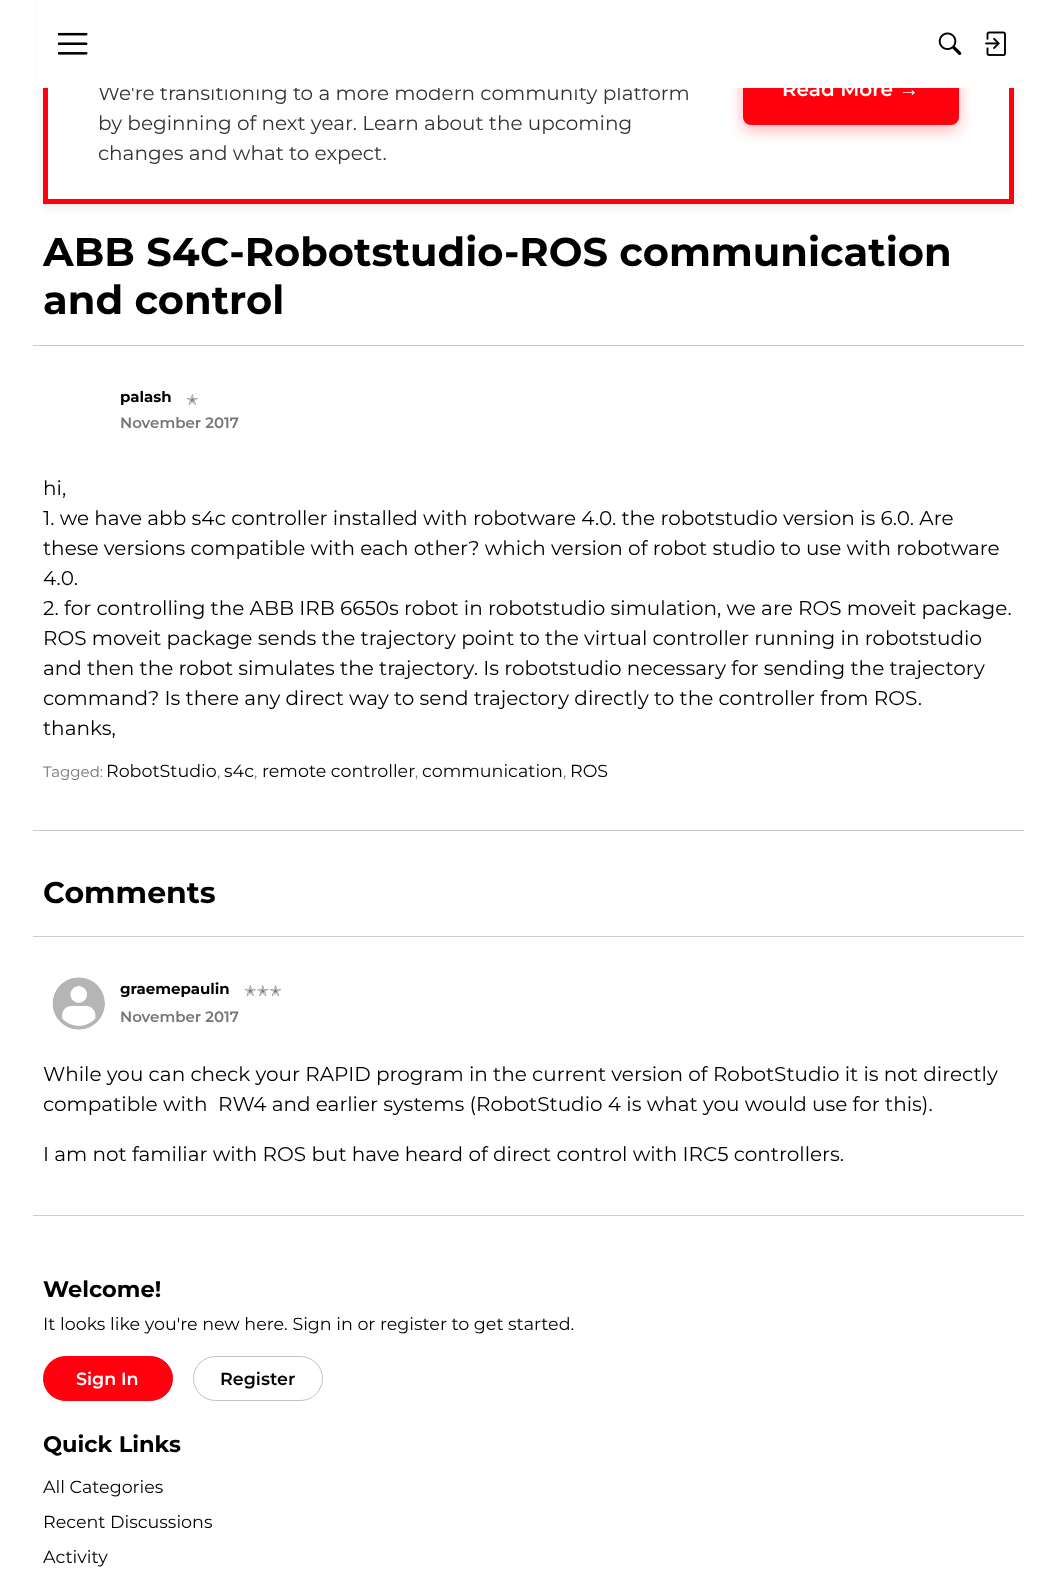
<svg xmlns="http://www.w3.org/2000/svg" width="1056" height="1586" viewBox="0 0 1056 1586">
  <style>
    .t1 { font: 20px Montserrat; fill: #333; }
    .t2 { font: 600 20px Montserrat; fill: #fff; }
    .t3 { font: bold 20px Liberation Sans; fill: #fff; }
    .t4 { font: bold 40px Montserrat; fill: #000; }
    .t5 { font: bold 15px Montserrat; fill: #000; }
    .t6 { font: 15px DejaVu Sans; fill: #767676; }
    .t7 { font: 600 15px Montserrat; fill: #767676; }
    .t8 { font: 20px Montserrat; fill: #000; }
    .t9 { font: 15px Montserrat; fill: #767676; }
    .t10 { font: 17.5px Montserrat; fill: #000; }
    .t11 { font: bold 30px Montserrat; fill: #000; }
    .t12 { font: bold 22.5px Montserrat; fill: #000; }
    .t13 { font: 600 17.5px Montserrat; fill: #fff; }
    .t14 { font: 600 17.5px Montserrat; fill: #000; }
  </style>
  <rect width="100%" height="100%" fill="#fff"/>
  <rect x="43" y="-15" width="971" height="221" fill="#0000001a" filter="blur(5px)"/>
  <rect x="48" y="88" width="961" height="111" fill="#fff"/>
  <rect x="45.5" y="-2.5" width="966" height="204" fill="none" stroke="#ff000f" stroke-width="5"/>
  <text x="98" y="100" class="t1">We're transitioning to a more modern community platform</text>
  <rect x="743" y="60" width="216" height="70" rx="8" fill="#ff000f4d" filter="blur(7.5px)"/>
  <rect x="743" y="55" width="216" height="70" rx="8" fill="#ff000f"/>
  <rect x="37" y="0" width="983" height="88" fill="#fff"/>
  <image x="58" y="32" width="30" height="23" href="images/1.png"/>
  <image x="938" y="32" width="24" height="23" href="images/2.png"/>
  <image x="985" y="31" width="21" height="25" href="images/3.png"/>
  <text x="98" y="130" class="t1">by beginning of next year. Learn about the upcoming</text>
  <text x="98" y="160" class="t1">changes and what to expect.</text>
  <text x="782" y="96" class="t2">Read More</text>
  <text x="899" y="96" class="t3">→</text>
  <text x="43" y="266" class="t4">ABB S4C-Robotstudio-ROS communication</text>
  <text x="43" y="314" class="t4">and control</text>
  <rect x="33" y="345" width="991" height="1" fill="#ccc"/>
  <text x="120" y="402" class="t5">palash</text>
  <text x="186" y="405" class="t6">✭</text>
  <text x="120" y="428" class="t7">November 2017</text>
  <text x="43" y="495" class="t8">hi,</text>
  <text x="43" y="525" class="t8">1. we have abb s4c controller installed with robotware 4.0. the robotstudio version is 6.0. Are</text>
  <text x="43" y="555" class="t8">these versions compatible with each other? which version of robot studio to use with robotware</text>
  <text x="43" y="585" class="t8">4.0.</text>
  <text x="43" y="615" class="t8">2. for controlling the ABB IRB 6650s robot in robotstudio simulation, we are ROS moveit package.</text>
  <text x="43" y="645" class="t8">ROS moveit package sends the trajectory point to the virtual controller running in robotstudio</text>
  <text x="43" y="675" class="t8">and then the robot simulates the trajectory. Is robotstudio necessary for sending the trajectory</text>
  <text x="43" y="705" class="t8">command? Is there any direct way to send trajectory directly to the controller from ROS.</text>
  <text x="43" y="735" class="t8">thanks,</text>
  <text x="43" y="777" class="t9">Tagged:</text>
  <text x="106" y="777" class="t10">RobotStudio</text>
  <text x="217" y="777" class="t9">,</text>
  <text x="224" y="777" class="t10">s4c</text>
  <text x="254" y="777" class="t9">,</text>
  <text x="262" y="777" class="t10">remote controller</text>
  <text x="415" y="777" class="t9">,</text>
  <text x="422" y="777" class="t10">communication</text>
  <text x="563" y="777" class="t9">,</text>
  <text x="570" y="777" class="t10">ROS</text>
  <rect x="33" y="830" width="991" height="1" fill="#ccc"/>
  <text x="43" y="903" class="t11">Comments</text>
  <rect x="33" y="936" width="991" height="1" fill="#ccc"/>
  <image x="52" y="977" width="53" height="53" href="images/4.png"/>
  <text x="120" y="994" class="t5">graemepaulin</text>
  <text x="244" y="996" class="t6">✭✭✭</text>
  <text x="120" y="1022" class="t7">November 2017</text>
  <text x="43" y="1081" class="t8">While you can check your RAPID program in the current version of RobotStudio it is not directly</text>
  <text x="43" y="1111" class="t8" xml:space="preserve">compatible with  RW4 and earlier systems (RobotStudio 4 is what you would use for this).</text>
  <text x="43" y="1161" class="t8">I am not familiar with ROS but have heard of direct control with IRC5 controllers.</text>
  <rect x="33" y="1215" width="991" height="1" fill="#ccc"/>
  <text x="43" y="1297" class="t12">Welcome!</text>
  <text x="43" y="1330" class="t10">It looks like you're new here. Sign in or register to get started.</text>
  <rect x="43.5" y="1356.5" width="129" height="44" rx="22" fill="#ff000f" stroke="#ff000f"/>
  <text x="76" y="1385" class="t13">Sign In</text>
  <rect x="193.5" y="1356.5" width="129" height="44" rx="22" fill="none" stroke="#c2c2c2"/>
  <text x="220" y="1385" class="t14">Register</text>
  <text x="43" y="1452" class="t12">Quick Links</text>
  <text x="43" y="1493" class="t10">All Categories</text>
  <text x="43" y="1528" class="t10">Recent Discussions</text>
  <text x="43" y="1563" class="t10">Activity</text>
</svg>
